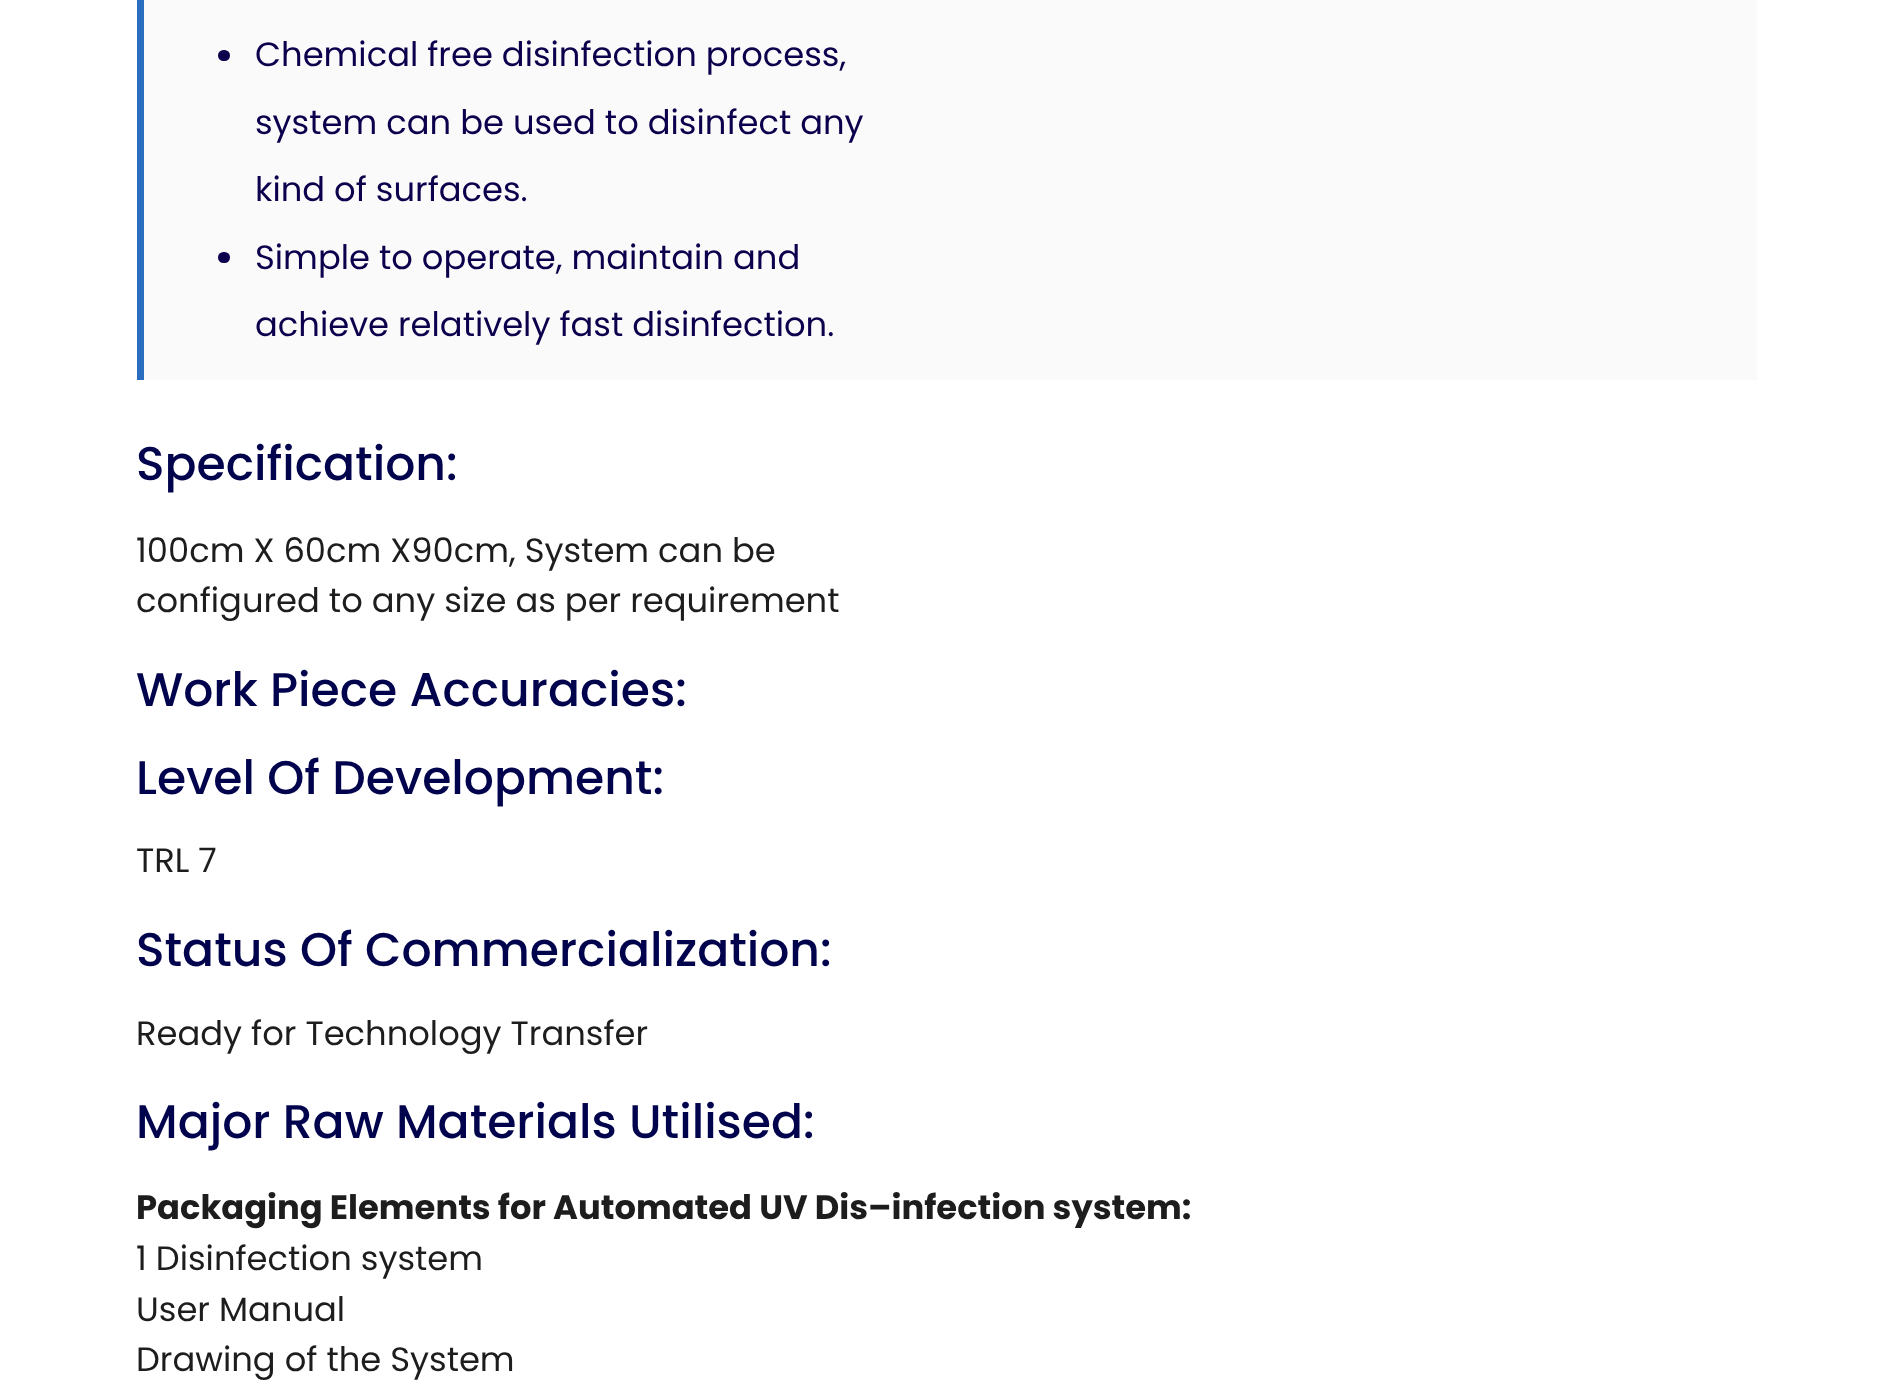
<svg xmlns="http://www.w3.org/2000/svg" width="1892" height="1388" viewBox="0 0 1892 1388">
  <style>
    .t1 { font: 33.75px Poppins; fill: #0c004d; }
    .t2 { font: 500 47.25px Poppins; fill: #01034d; }
    .t3 { font: 33.75px Poppins; fill: #1e1d1d; }
    .t4 { font: bold 33.75px Poppins; fill: #1e1d1d; }
  </style>
  <rect width="100%" height="100%" fill="#fff"/>
  <rect x="144" y="0" width="1613" height="380" fill="#fafafa"/>
  <rect x="137" y="0" width="7" height="380" fill="#296dc1"/>
  <rect x="218" y="50" width="12" height="11" rx="5.5" fill="#0c004d"/>
  <text x="255" y="66" class="t1">Chemical free disinfection process,</text>
  <text x="255" y="134" class="t1">system can be used to disinfect any</text>
  <text x="255" y="201" class="t1">kind of surfaces.</text>
  <rect x="218" y="252" width="12" height="11" rx="5.5" fill="#0c004d"/>
  <text x="255" y="269" class="t1">Simple to operate, maintain and</text>
  <text x="255" y="336" class="t1">achieve relatively fast disinfection.</text>
  <text x="136" y="480" class="t2">Specification:</text>
  <text x="136" y="562" class="t3">100cm X 60cm X90cm, System can be</text>
  <text x="136" y="612" class="t3">configured to any size as per requirement</text>
  <text x="136" y="706" class="t2">Work Piece Accuracies:</text>
  <text x="136" y="794" class="t2">Level Of Development:</text>
  <text x="136" y="872" class="t3">TRL 7</text>
  <text x="136" y="966" class="t2">Status Of Commercialization:</text>
  <text x="136" y="1045" class="t3">Ready for Technology Transfer</text>
  <text x="136" y="1138" class="t2">Major Raw Materials Utilised:</text>
  <text x="136" y="1219" class="t4">Packaging Elements for Automated UV Dis–infection system:</text>
  <text x="136" y="1270" class="t3">1 Disinfection system</text>
  <text x="136" y="1321" class="t3">User Manual</text>
  <text x="136" y="1371" class="t3">Drawing of the System</text>
</svg>
